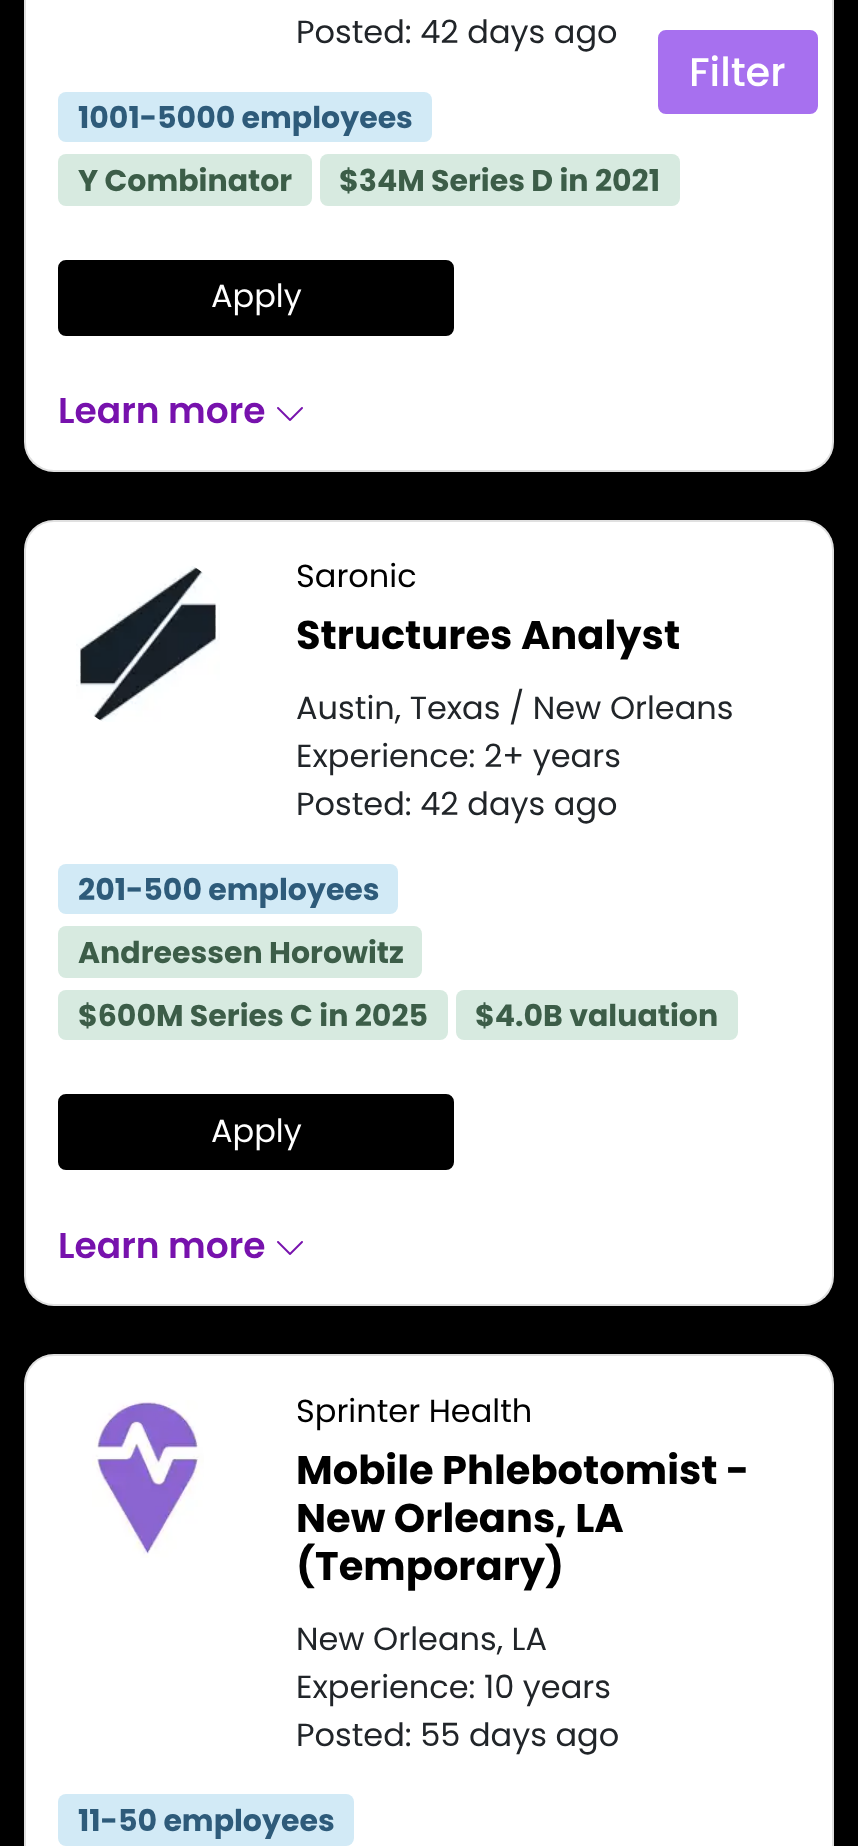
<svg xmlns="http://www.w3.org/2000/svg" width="858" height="1846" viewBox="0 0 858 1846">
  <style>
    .t1 { font: 32px Poppins; fill: #212529; }
    .t2 { font: bold 30px Poppins; fill: #2e5b7a; }
    .t3 { font: bold 30px Poppins; fill: #3c5d48; }
    .t4 { font: 32px Poppins; fill: #fff; }
    .t5 { font: 600 36px Poppins; fill: #7712ad; }
    .t6 { font: 32px Poppins; fill: #000; }
    .t7 { font: bold 40px Poppins; fill: #000; }
    .t8 { font: 500 40px Poppins; fill: #fff; }
  </style>
  <rect width="100%" height="100%" fill="#000"/>
  <rect x="24" y="-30" width="810" height="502" rx="30" fill="#fff"/>
  <rect x="25" y="-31" width="808" height="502" rx="29" fill="none" stroke="#0000001f" stroke-width="2"/>
  <text x="296" y="43" class="t1">Posted: 42 days ago</text>
  <rect x="58" y="92" width="374" height="50" rx="8" fill="#d2eaf6"/>
  <text x="78" y="128" class="t2">1001-5000 employees</text>
  <rect x="58" y="154" width="254" height="52" rx="8" fill="#d7eae0"/>
  <text x="78" y="191" class="t3">Y Combinator</text>
  <rect x="320" y="154" width="360" height="52" rx="8" fill="#d7eae0"/>
  <text x="339" y="191" class="t3">$34M Series D in 2021</text>
  <rect x="59" y="261" width="394" height="74" rx="7" fill="#000" stroke="#000" stroke-width="2"/>
  <text x="211" y="307" class="t4">Apply</text>
  <text x="58" y="423" class="t5">Learn more</text>
  <image x="277" y="407" width="26" height="14" href="images/1.png"/>
  <rect x="24" y="520" width="810" height="786" rx="30" fill="#fff"/>
  <rect x="25" y="521" width="808" height="784" rx="29" fill="none" stroke="#0000001f" stroke-width="2"/>
  <image x="76" y="566" width="144" height="156" href="images/2.png"/>
  <text x="296" y="587" class="t6">Saronic</text>
  <text x="296" y="649" class="t7">Structures Analyst</text>
  <text x="296" y="719" class="t1">Austin, Texas / New Orleans</text>
  <text x="296" y="767" class="t1">Experience: 2+ years</text>
  <text x="296" y="815" class="t1">Posted: 42 days ago</text>
  <rect x="58" y="864" width="340" height="50" rx="8" fill="#d2eaf6"/>
  <text x="78" y="900" class="t2">201-500 employees</text>
  <rect x="58" y="926" width="364" height="52" rx="8" fill="#d7eae0"/>
  <text x="78" y="963" class="t3">Andreessen Horowitz</text>
  <rect x="58" y="990" width="390" height="50" rx="8" fill="#d7eae0"/>
  <text x="78" y="1026" class="t3">$600M Series C in 2025</text>
  <rect x="456" y="990" width="282" height="50" rx="8" fill="#d7eae0"/>
  <text x="475" y="1026" class="t3">$4.0B valuation</text>
  <rect x="59" y="1095" width="394" height="74" rx="7" fill="#000" stroke="#000" stroke-width="2"/>
  <text x="211" y="1142" class="t4">Apply</text>
  <text x="58" y="1258" class="t5">Learn more</text>
  <image x="277" y="1241" width="26" height="14" href="images/1.png"/>
  <rect x="24" y="1354" width="810" height="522" rx="30" fill="#fff"/>
  <rect x="25" y="1355" width="808" height="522" rx="29" fill="none" stroke="#0000001f" stroke-width="2"/>
  <image x="92" y="1400" width="112" height="158" href="images/3.png"/>
  <text x="296" y="1422" class="t6">Sprinter Health</text>
  <text x="296" y="1484" class="t7">Mobile Phlebotomist -</text>
  <text x="296" y="1532" class="t7">New Orleans, LA</text>
  <text x="296" y="1580" class="t7">(Temporary)</text>
  <text x="296" y="1650" class="t1">New Orleans, LA</text>
  <text x="296" y="1698" class="t1">Experience: 10 years</text>
  <text x="296" y="1746" class="t1">Posted: 55 days ago</text>
  <rect x="58" y="1794" width="296" height="52" rx="8" fill="#d2eaf6"/>
  <text x="78" y="1831" class="t2">11-50 employees</text>
  <rect x="659" y="31" width="158" height="82" rx="7" fill="#a770ef" stroke="#a770ef" stroke-width="2"/>
  <text x="689" y="86" class="t8">Filter</text>
</svg>
